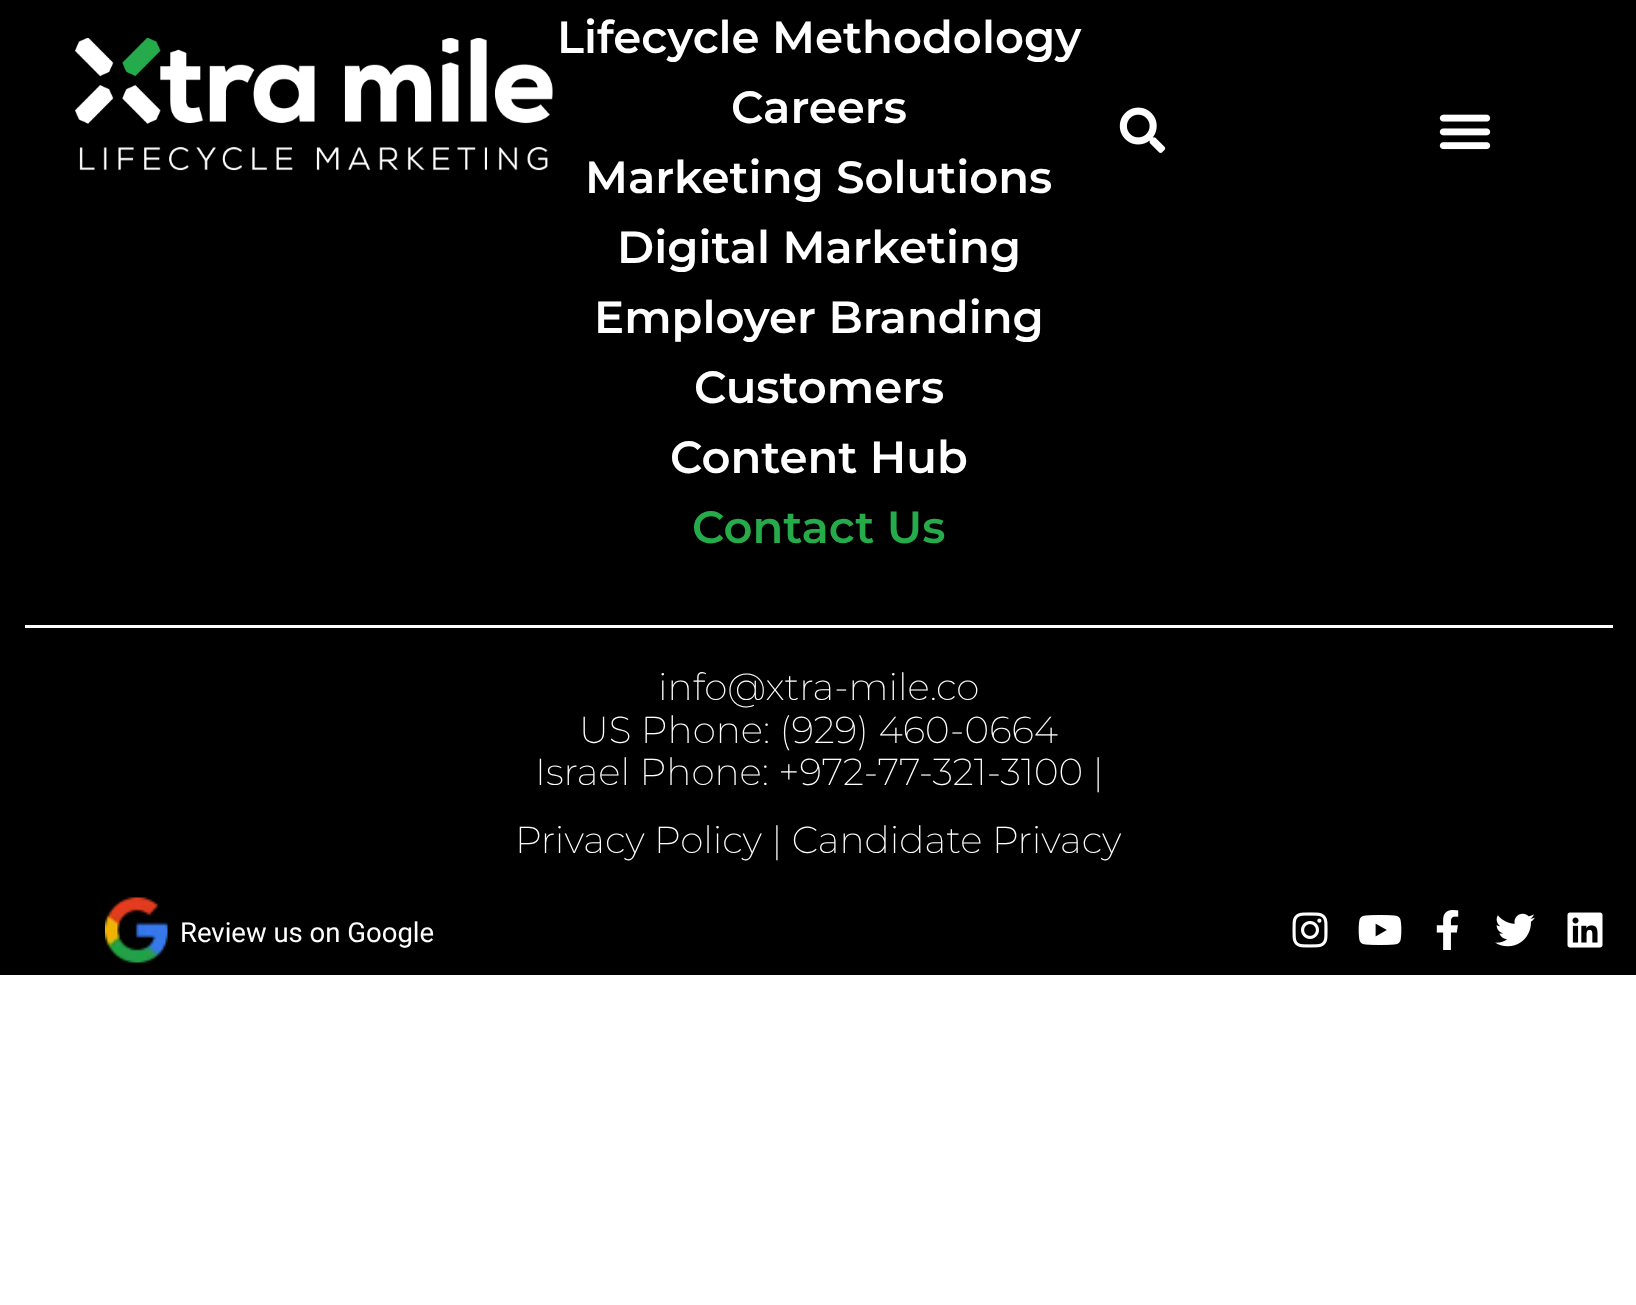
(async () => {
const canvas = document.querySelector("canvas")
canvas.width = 1636
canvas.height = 1305
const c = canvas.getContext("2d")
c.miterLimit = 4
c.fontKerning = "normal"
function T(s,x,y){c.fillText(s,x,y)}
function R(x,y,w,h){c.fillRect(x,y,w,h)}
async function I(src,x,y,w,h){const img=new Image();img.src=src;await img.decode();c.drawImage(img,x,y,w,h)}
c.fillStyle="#fff"
R(0,0,1636,1305)
c.fillStyle="#000"
R(0,0,1636,975)
c.font="600 45px Montserrat"
c.fillStyle="#fff"
T("Lifecycle Methodology",557,53)
T("Careers",731,123)
T("Marketing Solutions",585,193)
T("Digital Marketing",617,263)
T("Employer Branding",594,333)
T("Customers",694,403)
T("Content Hub",670,473)
c.fillStyle="#26ab4a"
T("Contact Us",692,543)
c.fillStyle="#fff"
R(25,625,1588,3)
c.font="200 37.5px Montserrat"
T("info@xtra-mile.co",658,700)
T("US Phone: (929) 460-0664",579,743)
T("Israel Phone: +972-77-321-3100 |",535,785)
T("Privacy Policy | Candidate Privacy",515,853)
await I("1.png",105,897,63,66)
c.font="27.5px Roboto"
T("Review us on Google",180,942)
await I("2.png",1292,912,36,36)
await I("3.png",1358,915,44,30)
await I("4.png",1436,910,23,40)
await I("5.png",1495,913,40,34)
await I("6.png",1567,912,36,36)
await I("7.png",75,38,478,133)
await I("8.png",1119,107,47,46)
await I("9.png",1439,114,52,36)
})()
